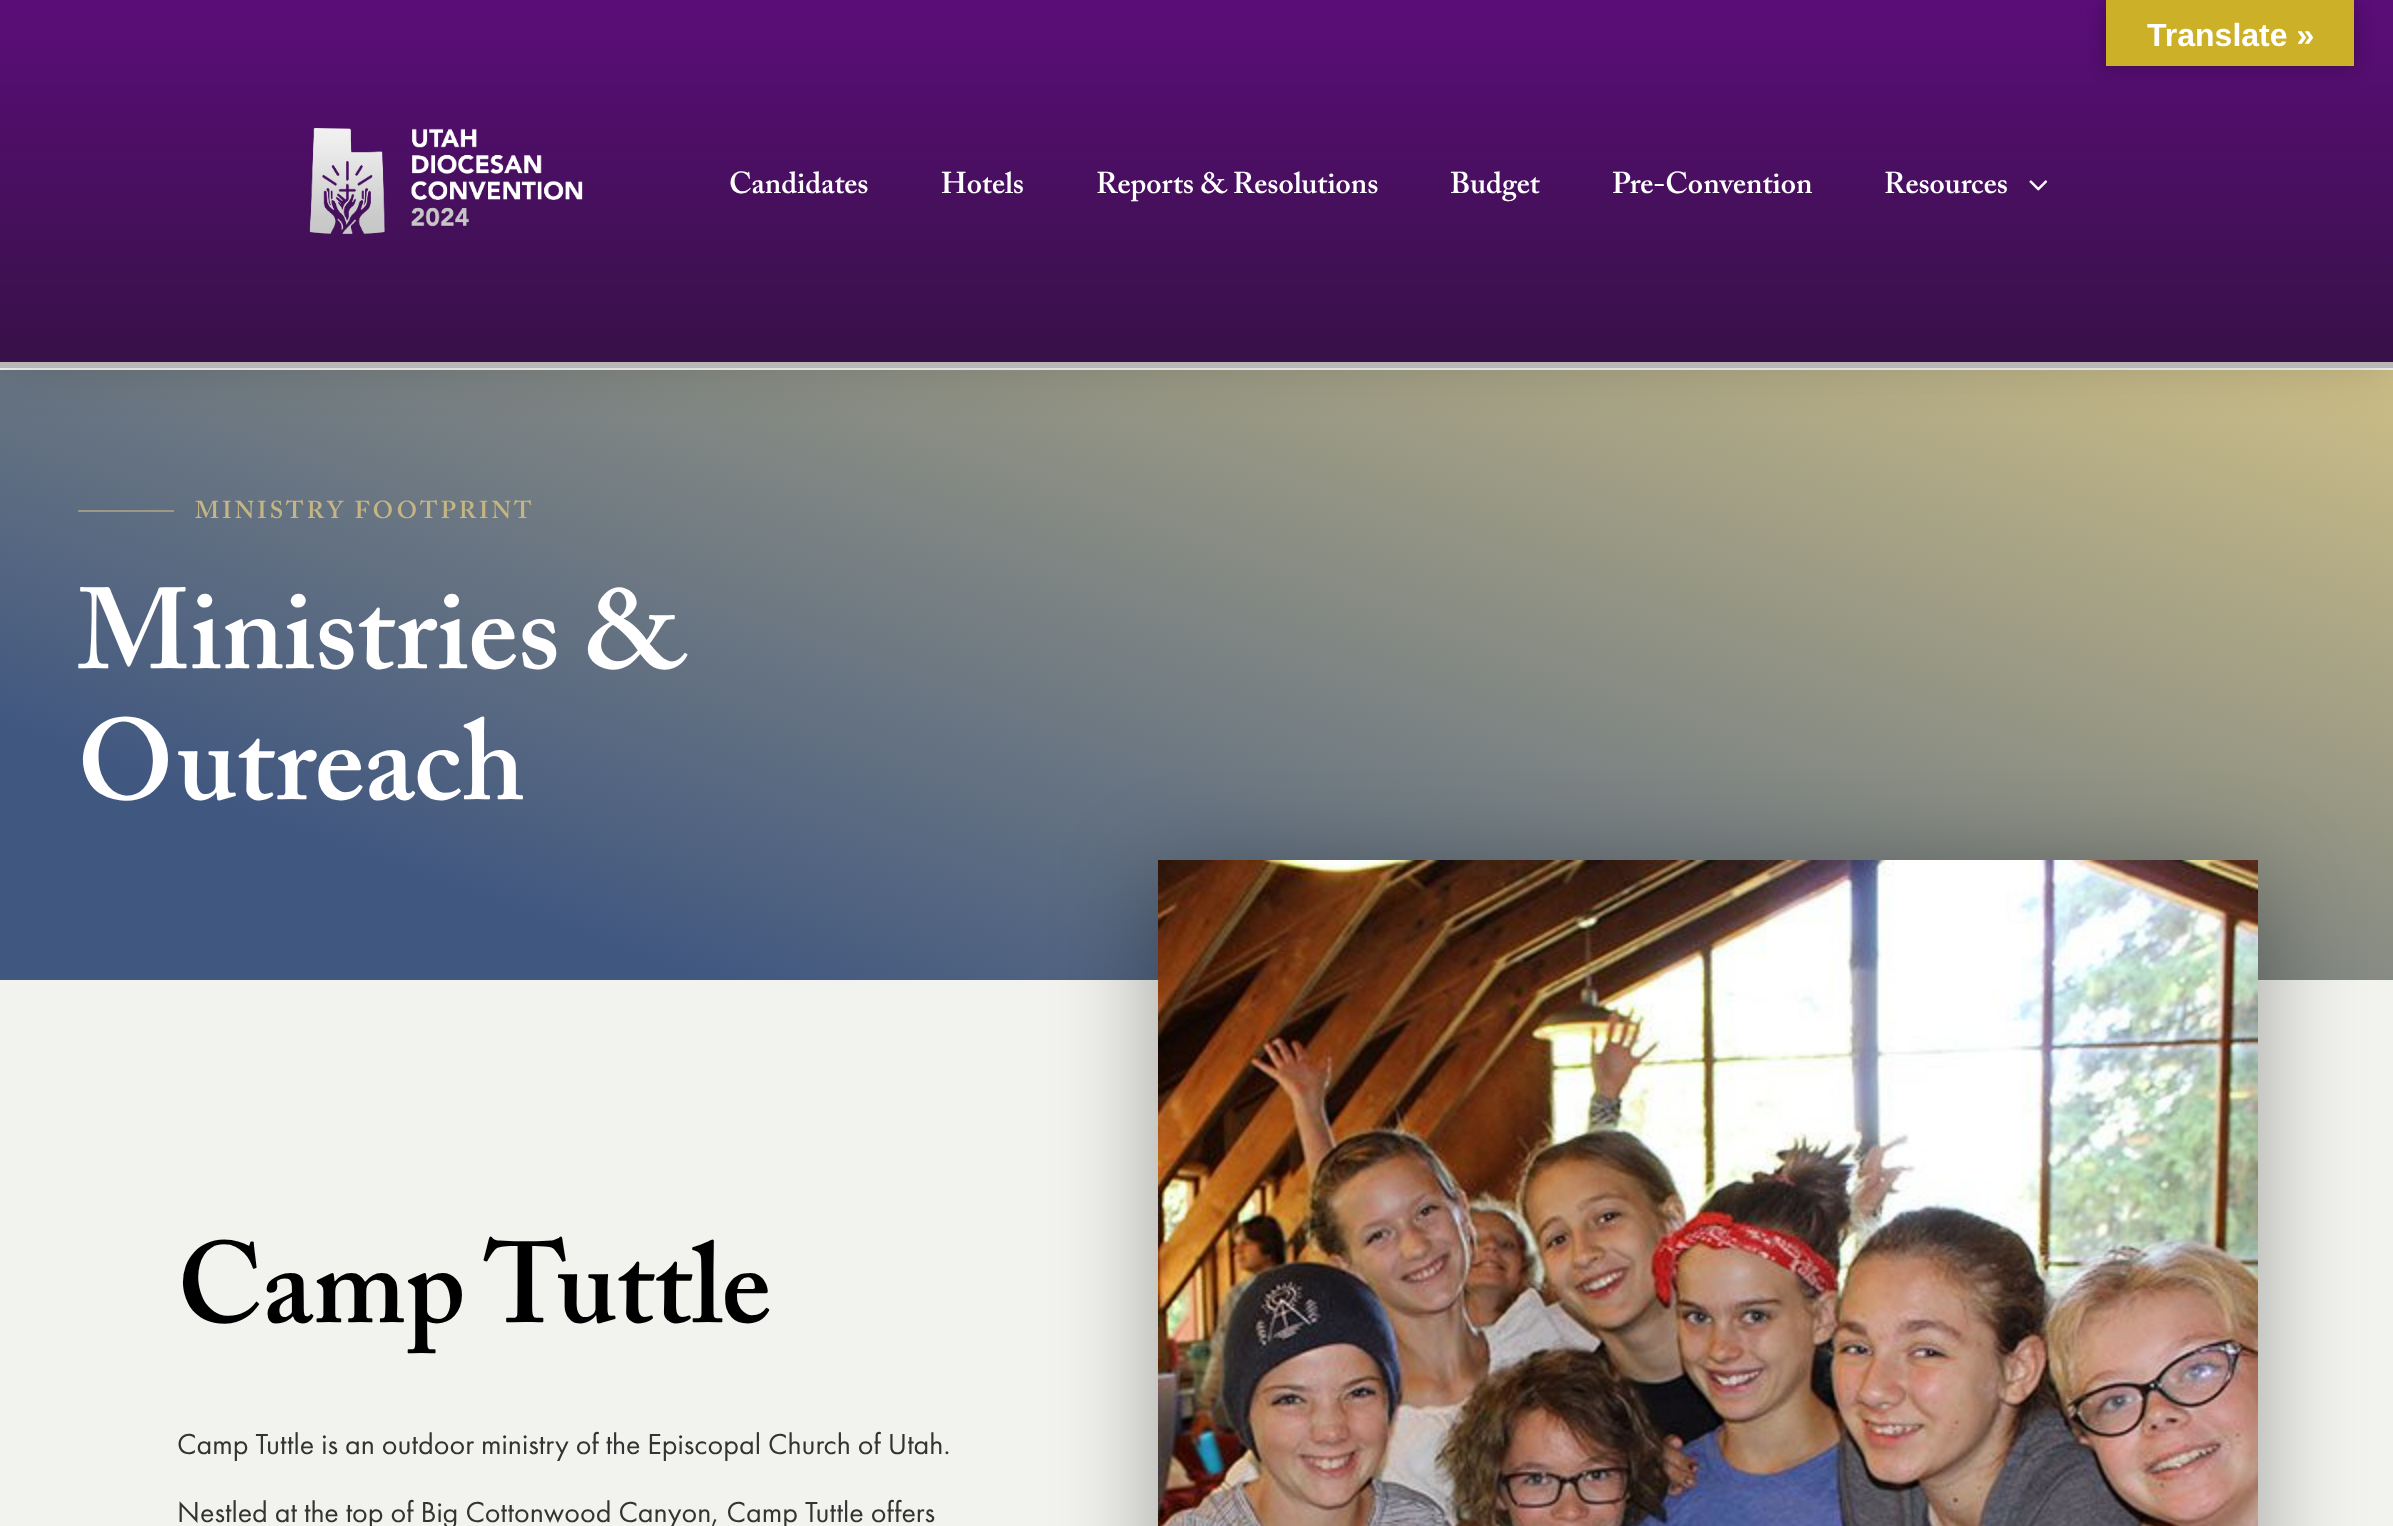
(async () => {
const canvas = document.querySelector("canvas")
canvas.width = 2393
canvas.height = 1526
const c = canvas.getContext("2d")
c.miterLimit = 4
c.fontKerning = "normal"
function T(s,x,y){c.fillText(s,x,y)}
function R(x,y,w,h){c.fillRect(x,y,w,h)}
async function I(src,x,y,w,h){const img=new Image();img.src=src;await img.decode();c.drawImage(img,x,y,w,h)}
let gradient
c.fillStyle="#f2f2ee"
R(0,0,2393,1526)
gradient = c.createLinearGradient(1435,21,959,1329)
gradient.addColorStop(0,"#ccbe87")
gradient.addColorStop(.83,"#405780")
c.fillStyle = gradient
R(0,370,2393,610)
c.fillStyle="#00000026"
c.filter="blur(24px)"
c.beginPath()
c.rect(0,0,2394,368)
c.fill()
c.filter="none"
gradient = c.createLinearGradient(1197,0,1197,362)
gradient.addColorStop(0,"#5b0d79")
gradient.addColorStop(1,"#371147")
c.fillStyle = gradient
R(0,0,2393,362)
c.fillStyle="#0000004d"
c.filter="blur(9px)"
c.beginPath()
c.rect(2106,0,248,66)
c.fill()
c.filter="none"
c.fillStyle="#ccb028"
R(2106,0,248,66)
c.font="bold 32px Liberation Sans"
c.fillStyle="#fff"
T("Translate »",2147,46)
c.fillStyle="#b7b7b7"
R(0,362,2393,6)
await I("1.png",309,128,274,106)
c.font="600 30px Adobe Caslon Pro"
c.fillStyle="#fff"
T("Candidates",729,193)
T("Hotels",941,193)
T("Reports & Resolutions",1096,193)
T("Budget",1450,193)
T("Pre-Convention",1612,193)
T("Resources",1884,193)
await I("2.png",2029,180,19,11)
gradient = c.createLinearGradient(1435,21,959,1329)
gradient.addColorStop(0,"#c7b985")
gradient.addColorStop(.83,"#8f8f82")
c.fillStyle = gradient
R(78,510,96,2)
c.letterSpacing="3px"
c.font="600 24.25px Adobe Caslon Pro"
c.fillStyle="#c4b583"
T("MINISTRY FOOTPRINT",195,518)
c.letterSpacing="0px"
c.font="600 114px Adobe Caslon Pro"
c.fillStyle="#fff"
T("Ministries &",77,668)
T("Outreach",77,799)
c.fillStyle="#000"
T("Camp Tuttle",177,1322)
c.font="30px Futura PT"
c.fillStyle="#333"
T("Camp Tuttle is an outdoor ministry of the Episcopal Church of Utah.",177,1454)
T("Nestled at the top of Big Cottonwood Canyon, Camp Tuttle offers",177,1522)
c.fillStyle="#00000059"
c.filter="blur(50px)"
c.beginPath()
c.rect(1158,880,1100,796)
c.fill()
c.filter="none"
await I("3.png",1158,860,1100,666)
})()
